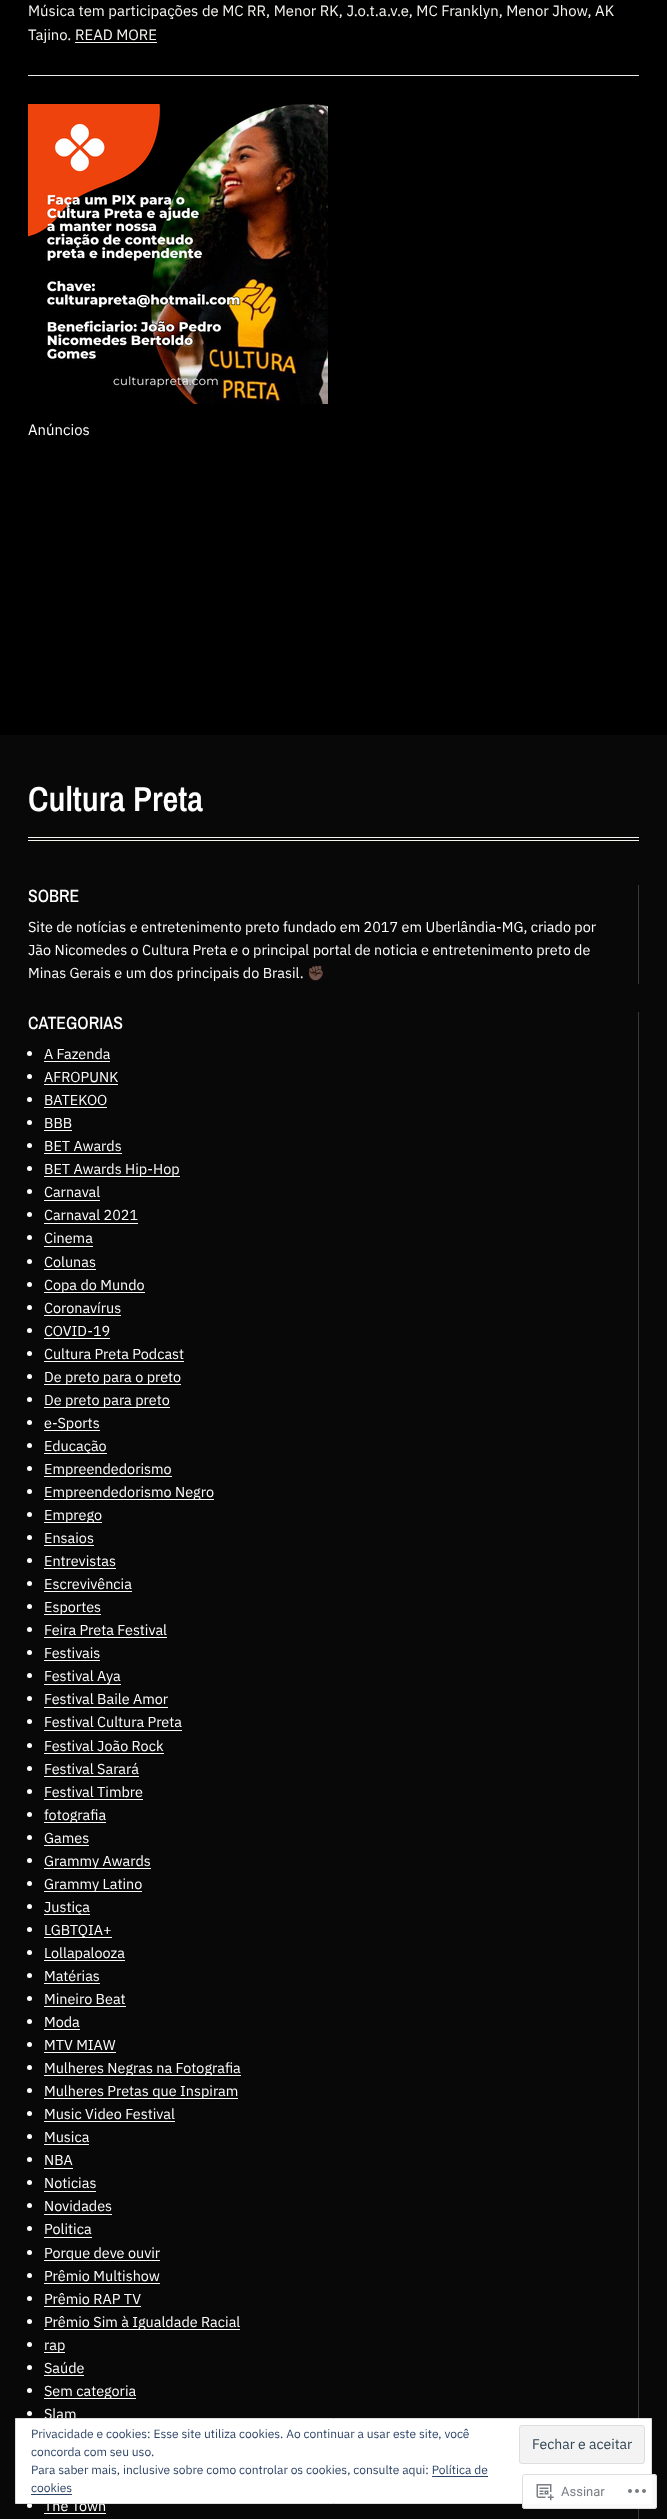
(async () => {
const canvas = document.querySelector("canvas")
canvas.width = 667
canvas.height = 2519
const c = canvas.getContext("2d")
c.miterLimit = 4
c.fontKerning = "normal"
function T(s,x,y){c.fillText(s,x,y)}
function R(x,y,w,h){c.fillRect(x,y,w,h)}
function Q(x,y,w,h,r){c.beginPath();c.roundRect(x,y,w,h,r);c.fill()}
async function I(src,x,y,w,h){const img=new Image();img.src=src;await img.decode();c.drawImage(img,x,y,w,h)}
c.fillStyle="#000"
R(0,0,667,2519)
c.fillStyle="#e8ebee"
R(28,75,611,1)
c.font="14.9px IBM Plex Sans"
c.fillStyle="#f7f6f1"
T("Música tem participações de MC RR, Menor RK, J.o.t.a.v.e, MC Franklyn, Menor Jhow, AK",28,16)
T("Tajino. READ MORE",28,40)
R(75,42,82,1)
await I("1.png",28,104,300,300)
c.fillStyle="#fff"
T("Anúncios",28,435)
c.fillStyle="#080808"
R(0,735,667,1784)
c.font="600 34.75px Archivo Narrow"
c.fillStyle="#fff"
T("Cultura Preta",28,811)
c.fillStyle="#f7f6f1"
R(28,837,611,1)
R(28,840,611,1)
c.fillStyle="#393939"
R(638,885,1,99)
c.font="500 17.75px Archivo Narrow"
c.fillStyle="#fff"
T("SOBRE",28,902)
c.font="14.4px IBM Plex Sans"
T("Site de notícias e entretenimento preto fundado em 2017 em Uberlândia-MG, criado por",28,932)
T("Jão Nicomedes o Cultura Preta e o principal portal de noticia e entretenimento preto de",28,955)
T("Minas Gerais e um dos principais do Brasil.",28,978)
c.font="14.4px Noto Color Emoji"
T("✊🏿",307,978)
c.fillStyle="#393939"
R(638,1012,1,1507)
c.font="500 17.75px Archivo Narrow"
c.fillStyle="#fff"
T("CATEGORIAS",28,1029)
c.beginPath()
c.arc(29.5,1053.5,2.5,0,7)
c.fill()
c.font="14.4px IBM Plex Sans"
T("A Fazenda",44,1059)
R(44,1061,66,1)
c.beginPath()
c.arc(29.5,1076.5,2.5,0,7)
c.fill()
T("AFROPUNK",44,1082)
R(44,1084,74,1)
c.beginPath()
c.arc(29.5,1099.5,2.5,0,7)
c.fill()
T("BATEKOO",44,1105)
R(44,1107,63,1)
c.beginPath()
c.arc(29.5,1122.5,2.5,0,7)
c.fill()
T("BBB",44,1128)
R(44,1130,28,1)
c.beginPath()
c.arc(29.5,1145.5,2.5,0,7)
c.fill()
T("BET Awards",44,1151)
R(44,1153,78,1)
c.beginPath()
c.arc(29.5,1168.5,2.5,0,7)
c.fill()
R(44,1176,136,1)
T("BET Awards Hip-Hop",44,1174)
c.beginPath()
c.arc(29.5,1191.5,2.5,0,7)
c.fill()
T("Carnaval",44,1197)
R(44,1200,56,1)
c.beginPath()
c.arc(29.5,1214.5,2.5,0,7)
c.fill()
T("Carnaval 2021",44,1220)
R(44,1223,94,1)
c.beginPath()
c.arc(29.5,1237.5,2.5,0,7)
c.fill()
T("Cinema",44,1243)
R(44,1246,49,1)
c.beginPath()
c.arc(29.5,1261.5,2.5,0,7)
c.fill()
T("Colunas",44,1267)
R(44,1269,52,1)
c.beginPath()
c.arc(29.5,1284.5,2.5,0,7)
c.fill()
R(44,1292,101,1)
T("Copa do Mundo",44,1290)
c.beginPath()
c.arc(29.5,1307.5,2.5,0,7)
c.fill()
T("Coronavírus",44,1313)
R(44,1315,77,1)
c.beginPath()
c.arc(29.5,1330.5,2.5,0,7)
c.fill()
T("COVID-19",44,1336)
R(44,1338,66,1)
c.beginPath()
c.arc(29.5,1353.5,2.5,0,7)
c.fill()
T("Cultura Preta Podcast",44,1359)
R(44,1361,140,1)
c.beginPath()
c.arc(29.5,1376.5,2.5,0,7)
c.fill()
R(44,1384,137,1)
T("De preto para o preto",44,1382)
c.beginPath()
c.arc(29.5,1399.5,2.5,0,7)
c.fill()
R(44,1407,126,1)
T("De preto para preto",44,1405)
c.beginPath()
c.arc(29.5,1422.5,2.5,0,7)
c.fill()
R(44,1430,56,1)
T("e-Sports",44,1428)
c.beginPath()
c.arc(29.5,1445.5,2.5,0,7)
c.fill()
R(44,1453,63,1)
T("Educação",44,1451)
c.beginPath()
c.arc(29.5,1468.5,2.5,0,7)
c.fill()
R(44,1476,128,1)
T("Empreendedorismo",44,1474)
c.beginPath()
c.arc(29.5,1491.5,2.5,0,7)
c.fill()
R(44,1499,170,1)
T("Empreendedorismo Negro",44,1497)
c.beginPath()
c.arc(29.5,1514.5,2.5,0,7)
c.fill()
R(44,1522,58,1)
T("Emprego",44,1520)
c.beginPath()
c.arc(29.5,1537.5,2.5,0,7)
c.fill()
T("Ensaios",44,1543)
R(44,1545,50,1)
c.beginPath()
c.arc(29.5,1560.5,2.5,0,7)
c.fill()
T("Entrevistas",44,1566)
R(44,1568,72,1)
c.beginPath()
c.arc(29.5,1583.5,2.5,0,7)
c.fill()
T("Escrevivência",44,1589)
R(44,1591,88,1)
c.beginPath()
c.arc(29.5,1606.5,2.5,0,7)
c.fill()
R(44,1614,57,1)
T("Esportes",44,1612)
c.beginPath()
c.arc(29.5,1629.5,2.5,0,7)
c.fill()
T("Feira Preta Festival",44,1635)
R(44,1637,123,1)
c.beginPath()
c.arc(29.5,1652.5,2.5,0,7)
c.fill()
T("Festivais",44,1658)
R(44,1660,56,1)
c.beginPath()
c.arc(29.5,1675.5,2.5,0,7)
c.fill()
T("Festival Aya",44,1681)
R(44,1684,77,1)
c.beginPath()
c.arc(29.5,1698.5,2.5,0,7)
c.fill()
T("Festival Baile Amor",44,1704)
R(44,1707,124,1)
c.beginPath()
c.arc(29.5,1721.5,2.5,0,7)
c.fill()
T("Festival Cultura Preta",44,1727)
R(44,1730,138,1)
c.beginPath()
c.arc(29.5,1745.5,2.5,0,7)
c.fill()
T("Festival João Rock",44,1751)
R(44,1753,120,1)
c.beginPath()
c.arc(29.5,1768.5,2.5,0,7)
c.fill()
T("Festival Sarará",44,1774)
R(44,1776,95,1)
c.beginPath()
c.arc(29.5,1791.5,2.5,0,7)
c.fill()
T("Festival Timbre",44,1797)
R(44,1799,99,1)
c.beginPath()
c.arc(29.5,1814.5,2.5,0,7)
c.fill()
R(44,1822,62,1)
T("fotografia",44,1820)
c.beginPath()
c.arc(29.5,1837.5,2.5,0,7)
c.fill()
T("Games",44,1843)
R(44,1845,45,1)
c.beginPath()
c.arc(29.5,1860.5,2.5,0,7)
c.fill()
R(44,1868,107,1)
T("Grammy Awards",44,1866)
c.beginPath()
c.arc(29.5,1883.5,2.5,0,7)
c.fill()
R(44,1891,98,1)
T("Grammy Latino",44,1889)
c.beginPath()
c.arc(29.5,1906.5,2.5,0,7)
c.fill()
R(44,1914,46,1)
T("Justiça",44,1912)
c.beginPath()
c.arc(29.5,1929.5,2.5,0,7)
c.fill()
R(44,1937,68,1)
T("LGBTQIA+",44,1935)
c.beginPath()
c.arc(29.5,1952.5,2.5,0,7)
c.fill()
R(44,1960,81,1)
T("Lollapalooza",44,1958)
c.beginPath()
c.arc(29.5,1975.5,2.5,0,7)
c.fill()
T("Matérias",44,1981)
R(44,1983,56,1)
c.beginPath()
c.arc(29.5,1998.5,2.5,0,7)
c.fill()
T("Mineiro Beat",44,2004)
R(44,2006,82,1)
c.beginPath()
c.arc(29.5,2021.5,2.5,0,7)
c.fill()
T("Moda",44,2027)
R(44,2029,36,1)
c.beginPath()
c.arc(29.5,2044.5,2.5,0,7)
c.fill()
T("MTV MIAW",44,2050)
R(44,2052,72,1)
c.beginPath()
c.arc(29.5,2067.5,2.5,0,7)
c.fill()
R(44,2075,197,1)
T("Mulheres Negras na Fotografia",44,2073)
c.beginPath()
c.arc(29.5,2090.5,2.5,0,7)
c.fill()
R(44,2098,194,1)
T("Mulheres Pretas que Inspiram",44,2096)
c.beginPath()
c.arc(29.5,2113.5,2.5,0,7)
c.fill()
T("Music Video Festival",44,2119)
R(44,2121,131,1)
c.beginPath()
c.arc(29.5,2136.5,2.5,0,7)
c.fill()
T("Musica",44,2142)
R(44,2144,45,1)
c.beginPath()
c.arc(29.5,2159.5,2.5,0,7)
c.fill()
T("NBA",44,2165)
R(44,2168,29,1)
c.beginPath()
c.arc(29.5,2182.5,2.5,0,7)
c.fill()
T("Noticias",44,2188)
R(44,2191,52,1)
c.beginPath()
c.arc(29.5,2205.5,2.5,0,7)
c.fill()
T("Novidades",44,2211)
R(44,2214,68,1)
c.beginPath()
c.arc(29.5,2228.5,2.5,0,7)
c.fill()
T("Politica",44,2234)
R(44,2237,48,1)
c.beginPath()
c.arc(29.5,2252.5,2.5,0,7)
c.fill()
R(44,2260,116,1)
T("Porque deve ouvir",44,2258)
c.beginPath()
c.arc(29.5,2275.5,2.5,0,7)
c.fill()
T("Prêmio Multishow",44,2281)
R(44,2283,116,1)
c.beginPath()
c.arc(29.5,2298.5,2.5,0,7)
c.fill()
T("Prêmio RAP TV",44,2304)
R(44,2306,97,1)
c.beginPath()
c.arc(29.5,2321.5,2.5,0,7)
c.fill()
R(44,2329,196,1)
T("Prêmio Sim à Igualdade Racial",44,2327)
c.beginPath()
c.arc(29.5,2344.5,2.5,0,7)
c.fill()
R(44,2352,21,1)
T("rap",44,2350)
c.beginPath()
c.arc(29.5,2367.5,2.5,0,7)
c.fill()
T("Saúde",44,2373)
R(44,2375,40,1)
c.beginPath()
c.arc(29.5,2390.5,2.5,0,7)
c.fill()
R(44,2398,92,1)
T("Sem categoria",44,2396)
c.beginPath()
c.arc(29.5,2413.5,2.5,0,7)
c.fill()
T("Slam",44,2419)
c.beginPath()
c.arc(29.5,2505.5,2.5,0,7)
c.fill()
T("The Town",44,2511)
R(44,2513,62,1)
c.beginPath()
c.rect(15.5,2418.5,636,85)
c.fill()
c.strokeStyle="#dedede"
c.stroke()
c.font="12px IBM Plex Sans"
c.fillStyle="#2e4467"
T("Privacidade e cookies: Esse site utiliza cookies. Ao continuar a usar este site, você",31,2438)
c.fillStyle="#f3f3f3"
c.beginPath()
c.roundRect(519.5,2425.5,125,38,2.5)
c.fill()
c.stroke()
c.font="14px IBM Plex Sans"
c.fillStyle="#2e4453"
T("Fechar e aceitar",532,2449)
c.font="12px IBM Plex Sans"
c.fillStyle="#2e4467"
T("concorda com seu uso.",31,2456)
T("Para saber mais, inclusive sobre como controlar os cookies, consulte aqui: Política de",31,2474)
T("cookies",31,2492)
R(432,2476,56,1)
R(31,2494,41,1)
c.fillStyle="#fffffffa"
Q(522,2474,135,35,3)
c.beginPath()
c.roundRect(522.5,2474.5,134,34,2.5)
c.strokeStyle="#dcdcdefa"
c.stroke()
await I("2.png",536,2484,18,17)
c.font="13px Roboto"
c.fillStyle="#7b7f85"
T("Assinar",561,2496)
await I("3.png",628,2489,18,4)
})()
